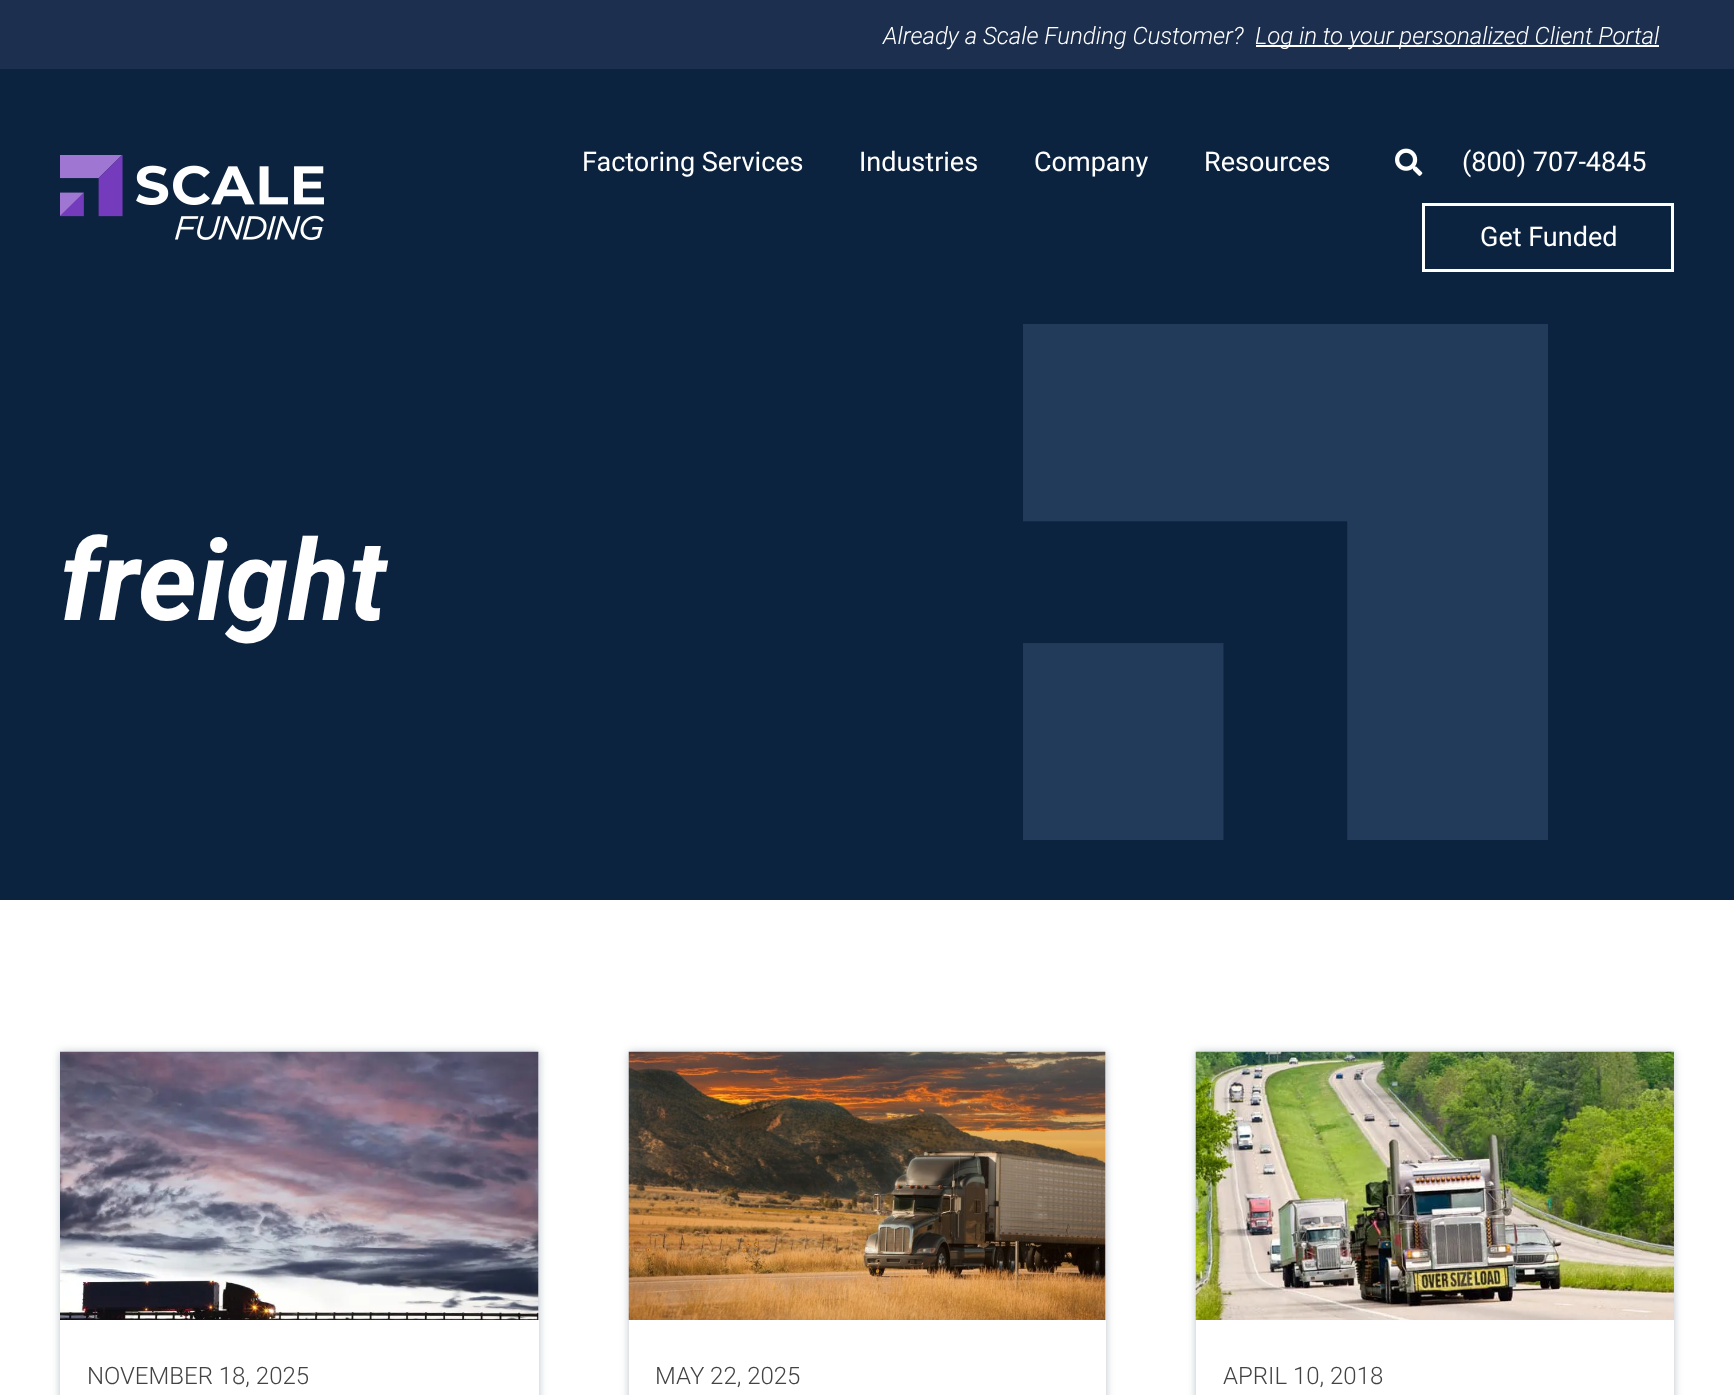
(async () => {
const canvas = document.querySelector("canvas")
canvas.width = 1734
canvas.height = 1395
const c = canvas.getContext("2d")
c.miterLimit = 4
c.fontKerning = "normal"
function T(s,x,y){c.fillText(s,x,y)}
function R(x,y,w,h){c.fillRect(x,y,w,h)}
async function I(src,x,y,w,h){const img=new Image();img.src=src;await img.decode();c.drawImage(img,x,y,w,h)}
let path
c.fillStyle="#fff"
R(0,0,1734,1395)
c.fillStyle="#1c2f4f"
R(0,0,1734,69)
c.font="italic 300 24px Roboto"
c.fillStyle="#fff"
T("Already a Scale Funding Customer?",883,44)
R(1256,45,403,2)
T("Log in to your personalized Client Portal",1255,44)
c.fillStyle="#0c2340"
R(0,69,1734,831)
await I("1.png",60,155,264,85)
c.font="27px Roboto"
c.fillStyle="#fff"
T("Factoring Services",582,171)
T("Industries",859,171)
T("Company",1034,171)
T("Resources",1204,171)
await I("2.png",1395,148,28,28)
T("(800) 707-4845",1462,171)
c.strokeStyle="#fff"
c.lineWidth=3
c.strokeRect(1423.5,204.5,249,66)
T("Get Funded",1480,246)
c.font="italic bold 112.5px Roboto"
T("freight",60,620)
await I("3.png",1023,324,525,516)
c.fillStyle="#7a869680"
c.filter="blur(4.5px)"
c.beginPath()
c.rect(60,1052,479,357)
c.fill()
c.filter="none"
c.fillStyle="#fff"
R(60,1320,479,75)
c.fillStyle="#d8dbe3"
R(538,1052,1,268)
await I("4.png",60,1051,479,269)
c.font="300 24px Roboto"
c.fillStyle="#434343"
T("NOVEMBER 18, 2025",87,1384)
c.fillStyle="#7a869680"
c.filter="blur(4.5px)"
c.beginPath()
c.rect(629,1052,477,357)
c.fill()
c.filter="none"
c.fillStyle="#fff"
R(629,1320,477,75)
c.fillStyle="#d8dbe3"
R(1105,1052,1,268)
await I("5.png",628,1051,478,269)
c.fillStyle="#434343"
T("MAY 22, 2025",655,1384)
c.save()
path = new Path2D("M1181 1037h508v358h-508zm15 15h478v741h-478z")
c.clip(path,"evenodd")
c.fillStyle="#7a869680"
c.filter="blur(4.5px)"
c.beginPath()
c.rect(1196,1052,478,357)
c.fill()
c.filter="none"
c.restore()
await I("6.png",1195,1051,479,269)
T("APRIL 10, 2018",1223,1384)
})()
